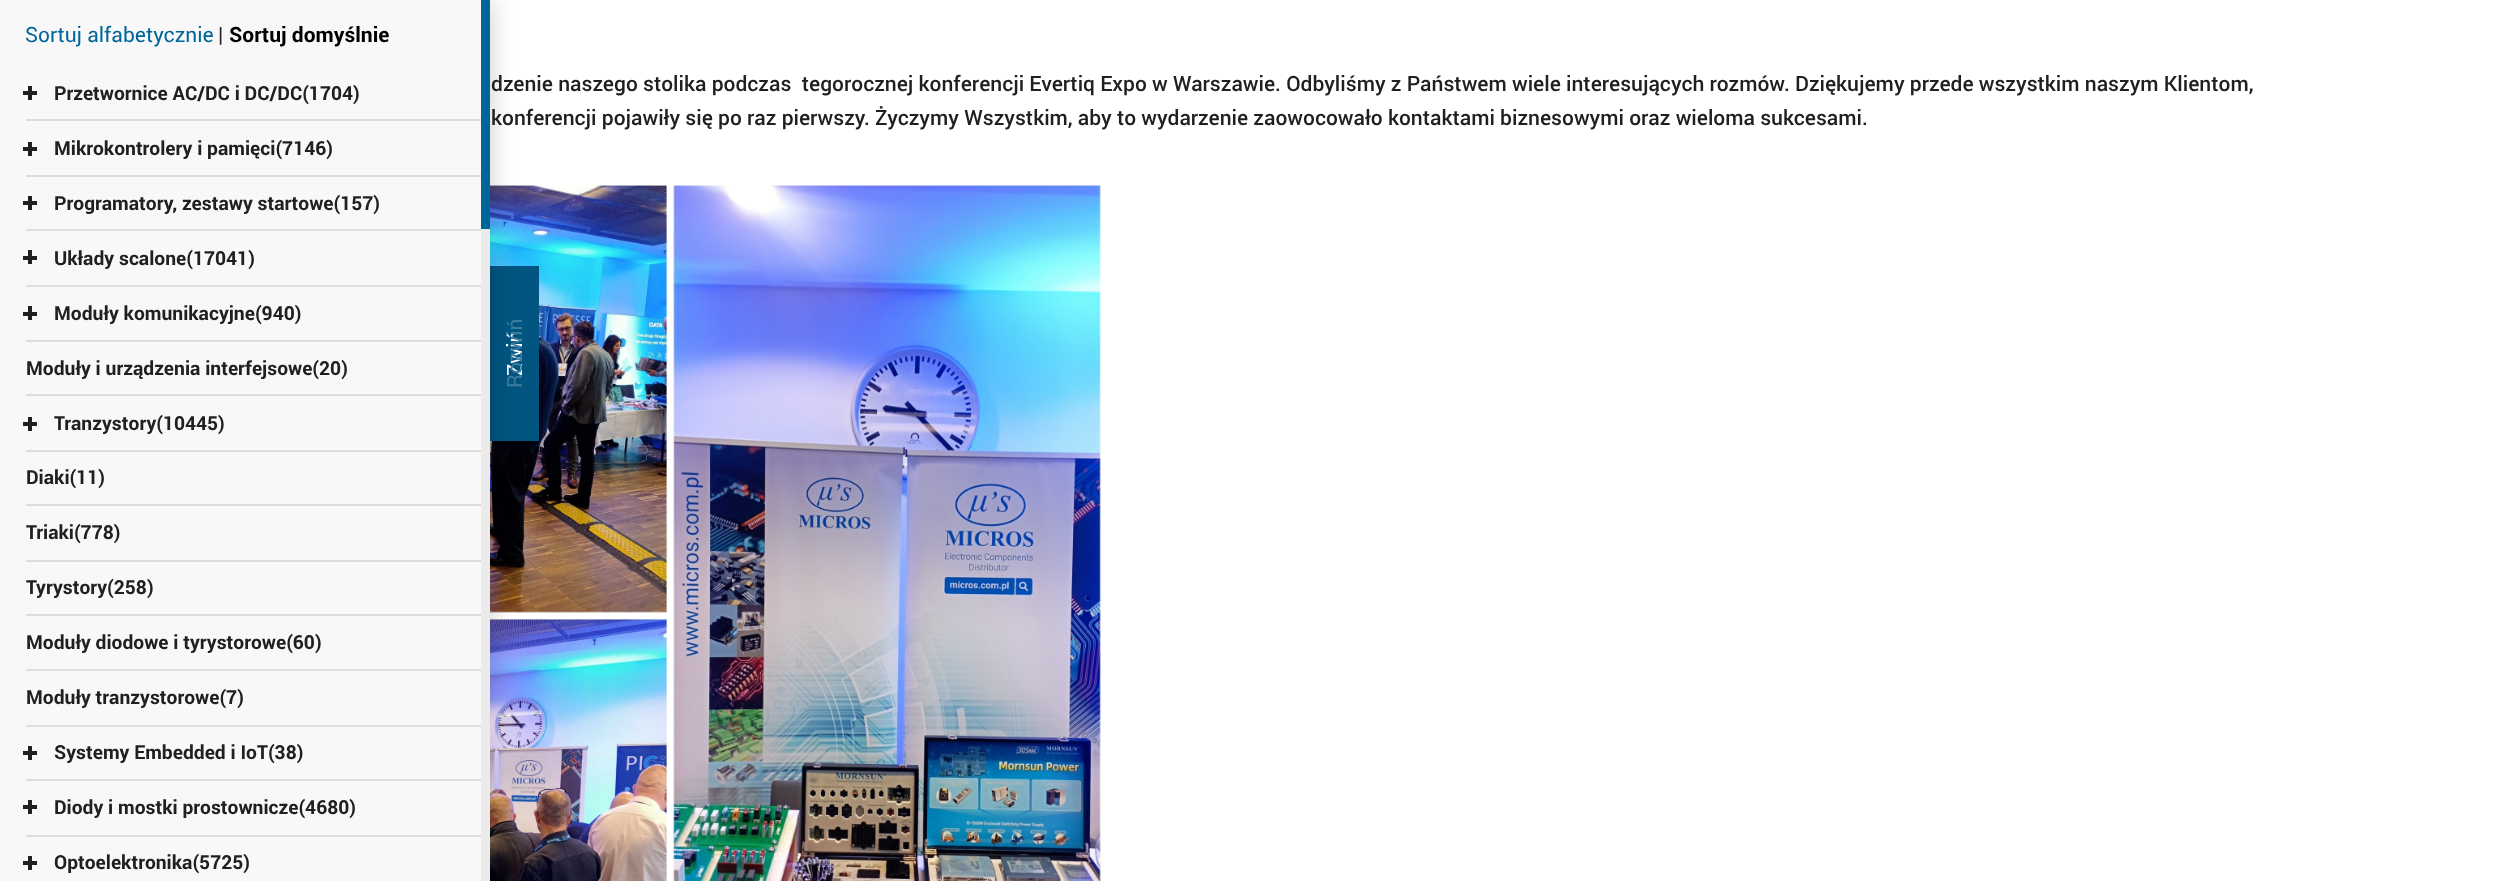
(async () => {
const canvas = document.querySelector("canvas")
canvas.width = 2511
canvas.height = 881
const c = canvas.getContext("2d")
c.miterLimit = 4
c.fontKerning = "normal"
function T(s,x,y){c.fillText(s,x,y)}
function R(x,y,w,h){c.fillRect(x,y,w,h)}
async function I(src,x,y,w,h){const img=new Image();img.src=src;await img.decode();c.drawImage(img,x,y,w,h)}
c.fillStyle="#fff"
R(0,0,2511,881)
await I("1.png",490,185,611,696)
c.fillStyle="#015580"
R(490,266,49,175)
c.fillStyle="#00000033"
c.filter="blur(13px)"
c.beginPath()
c.rect(0,0,490,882)
c.fill()
c.filter="none"
c.fillStyle="#f8f8f8"
R(0,0,481,881)
c.font="21px Roboto"
c.fillStyle="#069"
T("Sortuj alfabetycznie",25,42)
c.fillStyle="#202020"
T("|",218,42)
c.font="bold 21px Roboto"
c.fillStyle="#000"
T("Sortuj domyślnie",229,42)
c.fillStyle="#ddd"
R(26,119,455,2)
c.fillStyle="#202020"
R(23,91,14,4)
R(28,86,4,14)
c.font="bold 19.25px Roboto"
T("Przetwornice AC/DC i DC/DC(1704)",54,100)
c.fillStyle="#ddd"
R(26,175,455,2)
c.fillStyle="#202020"
R(23,147,14,4)
R(28,142,4,14)
T("Mikrokontrolery i pamięci(7146)",54,155)
c.fillStyle="#ddd"
R(26,229,455,2)
c.fillStyle="#202020"
R(23,201,14,4)
R(28,196,4,14)
T("Programatory, zestawy startowe(157)",54,210)
c.fillStyle="#ddd"
R(26,285,455,2)
c.fillStyle="#202020"
R(23,256,14,4)
R(28,250,4,14)
T("Układy scalone(17041)",54,265)
c.fillStyle="#ddd"
R(26,340,455,2)
c.fillStyle="#202020"
R(23,312,14,4)
R(28,306,4,14)
T("Moduły komunikacyjne(940)",54,320)
c.fillStyle="#ddd"
R(26,394,455,2)
c.fillStyle="#202020"
T("Moduły i urządzenia interfejsowe(20)",26,375)
c.fillStyle="#ddd"
R(26,450,455,2)
c.fillStyle="#202020"
R(23,422,14,4)
R(28,417,4,14)
T("Tranzystory(10445)",54,430)
c.fillStyle="#ddd"
R(26,504,455,2)
c.fillStyle="#202020"
T("Diaki(11)",26,484)
c.fillStyle="#ddd"
R(26,560,455,2)
c.fillStyle="#202020"
T("Triaki(778)",26,539)
c.fillStyle="#ddd"
R(26,614,455,2)
c.fillStyle="#202020"
T("Tyrystory(258)",26,594)
c.fillStyle="#ddd"
R(26,669,455,2)
c.fillStyle="#202020"
T("Moduły diodowe i tyrystorowe(60)",26,649)
c.fillStyle="#ddd"
R(26,725,455,2)
c.fillStyle="#202020"
T("Moduły tranzystorowe(7)",26,704)
c.fillStyle="#ddd"
R(26,779,455,2)
c.fillStyle="#202020"
R(23,751,14,4)
R(28,746,4,14)
T("Systemy Embedded i IoT(38)",54,759)
c.fillStyle="#ddd"
R(26,835,455,2)
c.fillStyle="#202020"
R(23,805,14,4)
R(28,800,4,14)
T("Diody i mostki prostownicze(4680)",54,814)
R(23,861,14,4)
R(28,856,4,14)
T("Optoelektronika(5725)",54,869)
c.fillStyle="#ebebeb"
R(481,229,9,652)
c.fillStyle="#069"
R(481,0,9,229)
c.font="21px Roboto"
c.fillStyle="#fff"
c.save()
c.translate(522,376)
c.rotate(-90 * Math.PI / 180)
c.fillText("Zwiń",0,0)
c.restore()
c.fillStyle="#3b7c9d"
c.save()
c.translate(522,388)
c.rotate(-90 * Math.PI / 180)
c.fillText("Rozwiń",0,0)
c.restore()
c.font="500 21px Roboto"
c.fillStyle="#202020"
T("dzenie naszego stolika podczas  tegorocznej konferencji Evertiq Expo w Warszawie. Odbyliśmy z Państwem wiele interesujących rozmów. Dziękujemy przede wszystkim naszym Klientom,",491,91)
T("konferencji pojawiły się po raz pierwszy. Życzymy Wszystkim, aby to wydarzenie zaowocowało kontaktami biznesowymi oraz wieloma sukcesami.",491,125)
})()
